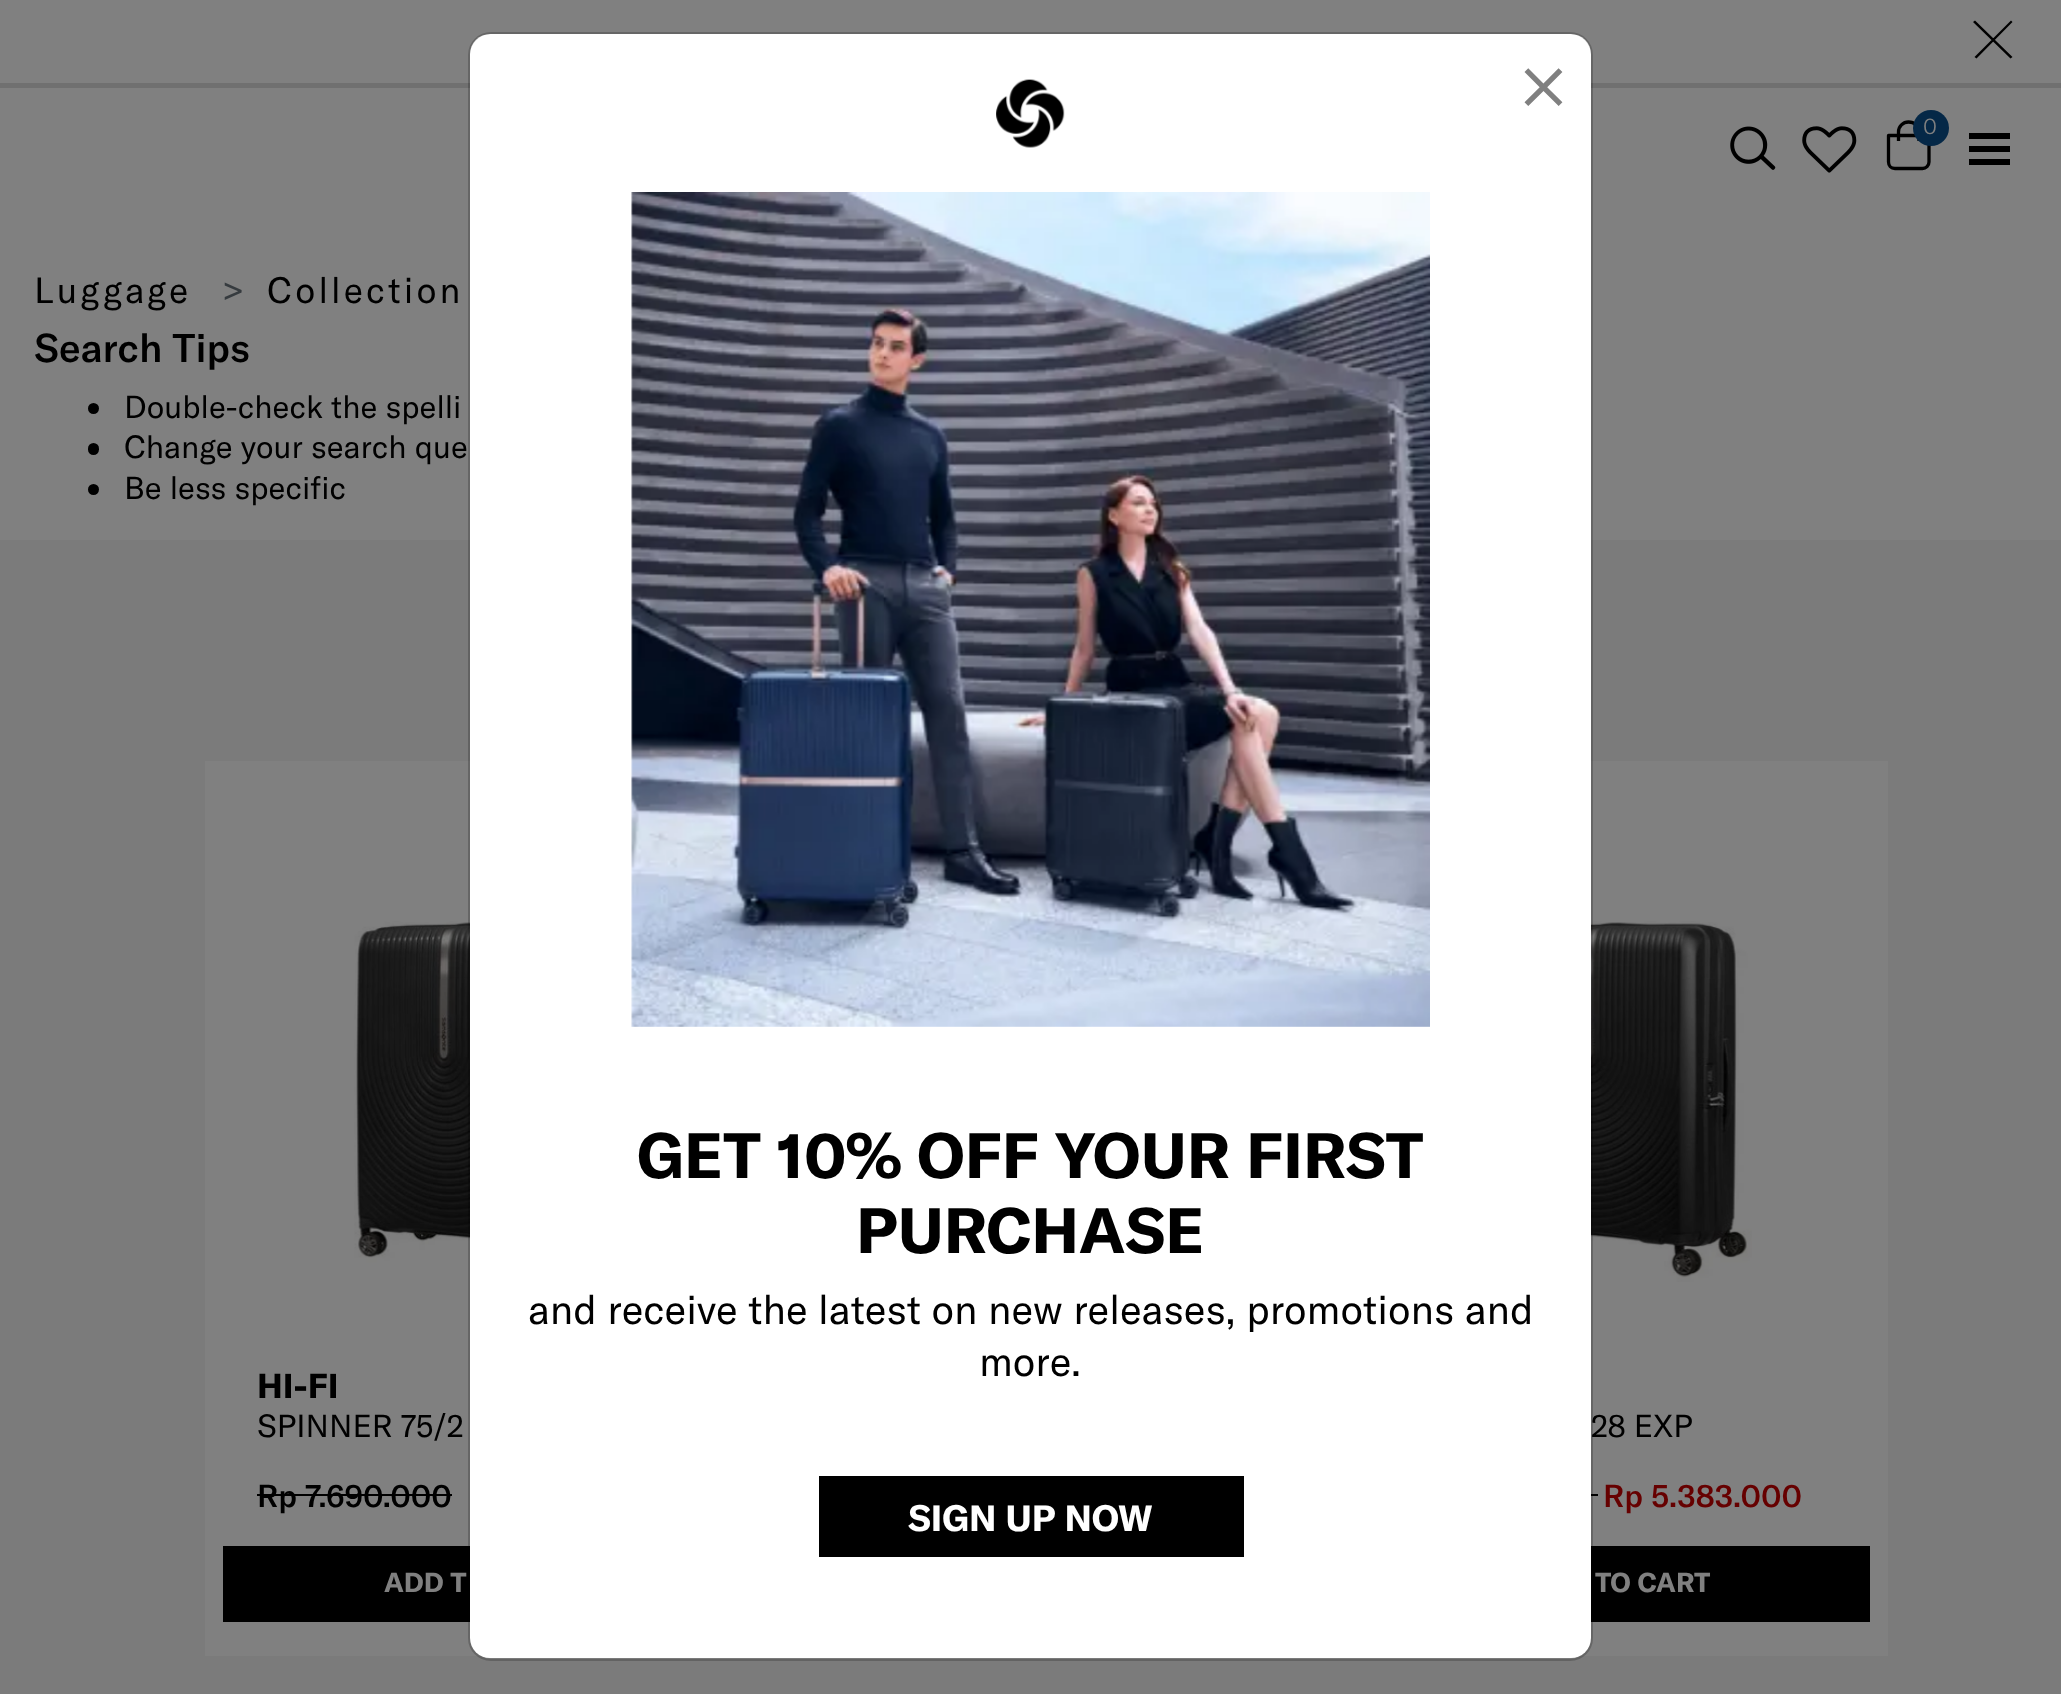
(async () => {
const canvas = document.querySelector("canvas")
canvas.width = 2061
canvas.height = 1694
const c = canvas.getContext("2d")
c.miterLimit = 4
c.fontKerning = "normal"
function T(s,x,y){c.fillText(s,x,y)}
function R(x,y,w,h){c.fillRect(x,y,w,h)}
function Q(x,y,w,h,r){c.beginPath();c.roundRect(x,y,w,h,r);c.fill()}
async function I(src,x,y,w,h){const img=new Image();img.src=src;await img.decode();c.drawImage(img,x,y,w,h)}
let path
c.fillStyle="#808080"
R(0,0,2061,1694)
c.fillStyle="#707070"
R(0,83,2061,5)
c.fillStyle="#7b7b7b"
R(0,540,2061,1154)
c.fillStyle="#808080"
R(205,761,277,895)
R(1579,761,309,895)
c.fillStyle="#fff"
Q(470,34,1121,1624,20)
await I("5.png",354,921,116,362)
c.fillStyle="#000"
R(223,1546,247,76)
await I("6.png",1591,921,161,361)
c.font="31.5px GT America"
T("28 EXP",1591,1437)
R(1591,1494,7,2)
R(1591,1546,279,76)
c.beginPath()
c.roundRect(469,33,1123,1627,22)
c.strokeStyle="#00000033"
c.lineWidth=2
c.stroke()
await I("1.png",996,79,69,69)
c.font="300 79px GT America"
c.fillStyle="#808080"
T("×",1519,113)
await I("2.png",631,192,799,835)
c.font="bold 63px GT America"
c.fillStyle="#000"
T("GET 10% OFF YOUR FIRST",637,1178)
T("PURCHASE",856,1253)
c.font="40.5px GT America"
T("and receive the latest on new releases, promotions and",528,1324)
T("more.",979,1376)
R(819,1476,425,81)
c.font="bold 36px GT America"
c.fillStyle="#fff"
T("SIGN UP NOW",908,1531)
c.fillStyle="#000"
path = new Path2D("M1973 22l2-1.5l37.5 36.5l-2 1.5zm1.5 35l36.5-36.5l1.5 1.5l-36 36.5z")
c.fill(path)
await I("3.png",1730,126,46,44)
await I("4.png",1802,126,55,47)
path = new Path2D("M1888.5 135.5h40.5v26.5c0 3.5-3 6.5-6.5 6.5h-27.5c-4 0-6.5-3-6.5-6.5zm10 5.5v-9c0-5.5 4.5-10 10-10c6 0 10.5 4.5 10.5 10v9")
c.strokeStyle="#000"
c.lineWidth=3.3
c.lineJoin="round"
c.stroke(path)
c.fillStyle="#052847"
c.beginPath()
c.arc(1931,128,18,0,7)
c.fill()
c.font="300 22px GT America"
c.fillStyle="#808080"
T("0",1923,134)
c.fillStyle="#000"
path = new Path2D("M1969 133h41v6h-41zm0 13h41v6h-41zm0 13h41v6h-41z")
c.fill(path)
c.letterSpacing="3.1px"
c.font="36px GT America"
T("Luggage",34,303)
c.fillStyle="#363b3f"
T(">",222,303)
c.fillStyle="#000"
T("Collection",267,303)
c.letterSpacing="0px"
c.font="500 39.5px GT America"
T("Search Tips",34,362)
c.beginPath()
c.arc(93.5,408.5,5.5,0,7)
c.fill()
c.font="31.5px GT America"
T("Double-check the spelli",124,418)
Q(88,443,11,12,5.5)
T("Change your search que",124,458)
c.beginPath()
c.arc(93.5,489.5,5.5,0,7)
c.fill()
T("Be less specific",124,499)
c.font="bold 34px GT America"
T("HI-FI",257,1398)
c.font="31.5px GT America"
T("SPINNER 75/2",257,1437)
c.font="500 31.5px GT America"
T("Rp 7.690.000",257,1507)
R(257,1494,195,2)
c.font="bold 27px GT America"
c.fillStyle="#808080"
T("ADD T",384,1592)
c.font="500 31.5px GT America"
c.fillStyle="#600"
T("Rp 5.383.000",1603,1507)
c.font="bold 27px GT America"
c.fillStyle="#808080"
T("TO CART",1595,1592)
})()
